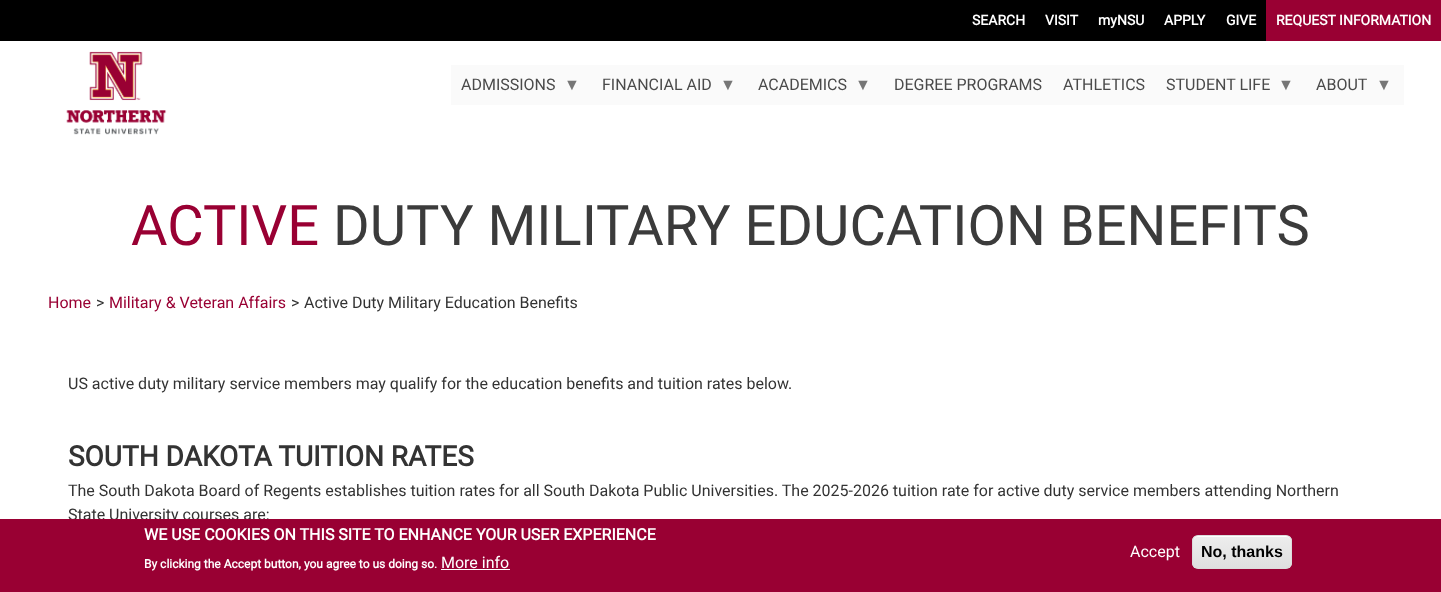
(async () => {
const canvas = document.querySelector("canvas")
canvas.width = 1441
canvas.height = 592
const c = canvas.getContext("2d")
c.miterLimit = 4
c.fontKerning = "normal"
function T(s,x,y){c.fillText(s,x,y)}
function R(x,y,w,h){c.fillRect(x,y,w,h)}
async function I(src,x,y,w,h){const img=new Image();img.src=src;await img.decode();c.drawImage(img,x,y,w,h)}
let gradient, path
c.fillStyle="#fff"
R(0,0,1441,592)
c.fillStyle="#000"
R(0,0,1266,41)
c.font="bold 14px Roboto"
c.fillStyle="#fff"
T("SEARCH",972,25)
T("VISIT",1045,25)
T("myNSU",1098,25)
T("APPLY",1164,25)
T("GIVE",1226,25)
c.fillStyle="#903"
R(1266,0,175,41)
c.fillStyle="#fff"
T("REQUEST INFORMATION",1276,25)
await I("1.png",66,51,101,84)
c.fillStyle="#fafafa"
R(451,65,953,40)
c.font="16px Roboto"
c.fillStyle="#4a4a4a"
T("ADMISSIONS",461,90)
c.font="16px Liberation Sans"
c.fillStyle="#767676"
T("▼",564,90)
c.font="16px Roboto"
c.fillStyle="#4a4a4a"
T("FINANCIAL AID",602,90)
c.font="16px Liberation Sans"
c.fillStyle="#767676"
T("▼",720,90)
c.font="16px Roboto"
c.fillStyle="#4a4a4a"
T("ACADEMICS",758,90)
c.font="16px Liberation Sans"
c.fillStyle="#767676"
T("▼",855,90)
c.font="16px Roboto"
c.fillStyle="#4a4a4a"
T("DEGREE PROGRAMS",894,90)
T("ATHLETICS",1063,90)
T("STUDENT LIFE",1166,90)
c.font="16px Liberation Sans"
c.fillStyle="#767676"
T("▼",1278,90)
c.font="16px Roboto"
c.fillStyle="#4a4a4a"
T("ABOUT",1316,90)
c.font="16px Liberation Sans"
c.fillStyle="#767676"
T("▼",1376,90)
c.font="56px Roboto"
c.fillStyle="#903"
T("ACTIVE",131,245)
c.fillStyle="#3b3b3b"
T("DUTY MILITARY EDUCATION BENEFITS",333,245)
c.font="16px Roboto"
c.fillStyle="#903"
T("Home",48,308)
c.fillStyle="#333"
T(">",96,308)
c.fillStyle="#903"
T("Military & Veteran Affairs",109,308)
c.fillStyle="#333"
T(">",291,308)
T("Active Duty Military Education Benefits",304,308)
T("US active duty military service members may qualify for the education benefits and tuition rates below.",68,389)
c.font="bold 28px Roboto"
T("SOUTH DAKOTA TUITION RATES",68,466)
c.font="16px Roboto"
T("The South Dakota Board of Regents establishes tuition rates for all South Dakota Public Universities. The 2025-2026 tuition rate for active duty service members attending Northern",68,496)
T("State University courses are:",68,520)
c.fillStyle="#903"
R(0,519,1441,73)
c.font="bold 16px Roboto"
c.fillStyle="#fff"
T("WE USE COOKIES ON THIS SITE TO ENHANCE YOUR USER EXPERIENCE",144,540)
c.font="bold 12px Roboto"
T("By clicking the Accept button, you agree to us doing so.",144,568)
c.font="16px Roboto"
T("More info",441,568)
R(441,569,69,1)
T("Accept",1130,557)
c.save()
c.beginPath()
c.roundRect(1192,535,100,34,6)
c.clip()
gradient = c.createLinearGradient(1242,536,1242,568)
gradient.addColorStop(.05,"#ededed")
gradient.addColorStop(1,"#dfdfdf")
c.fillStyle = gradient
R(1192,536,100,32)
c.restore()
path = new Path2D("M1198 537h88c3 0 5 2 5 5c0-10-14-6-20-6h-58c-6 0-20-4-20 6c0-3 2-5 5-5z")
c.fill(path)
c.beginPath()
c.roundRect(1192.5,535.5,99,33,5.5)
c.strokeStyle="#dcdcdc"
c.stroke()
c.font="bold 16px Liberation Sans"
c.fillStyle="#000"
T("No, thanks",1201,557)
})()
